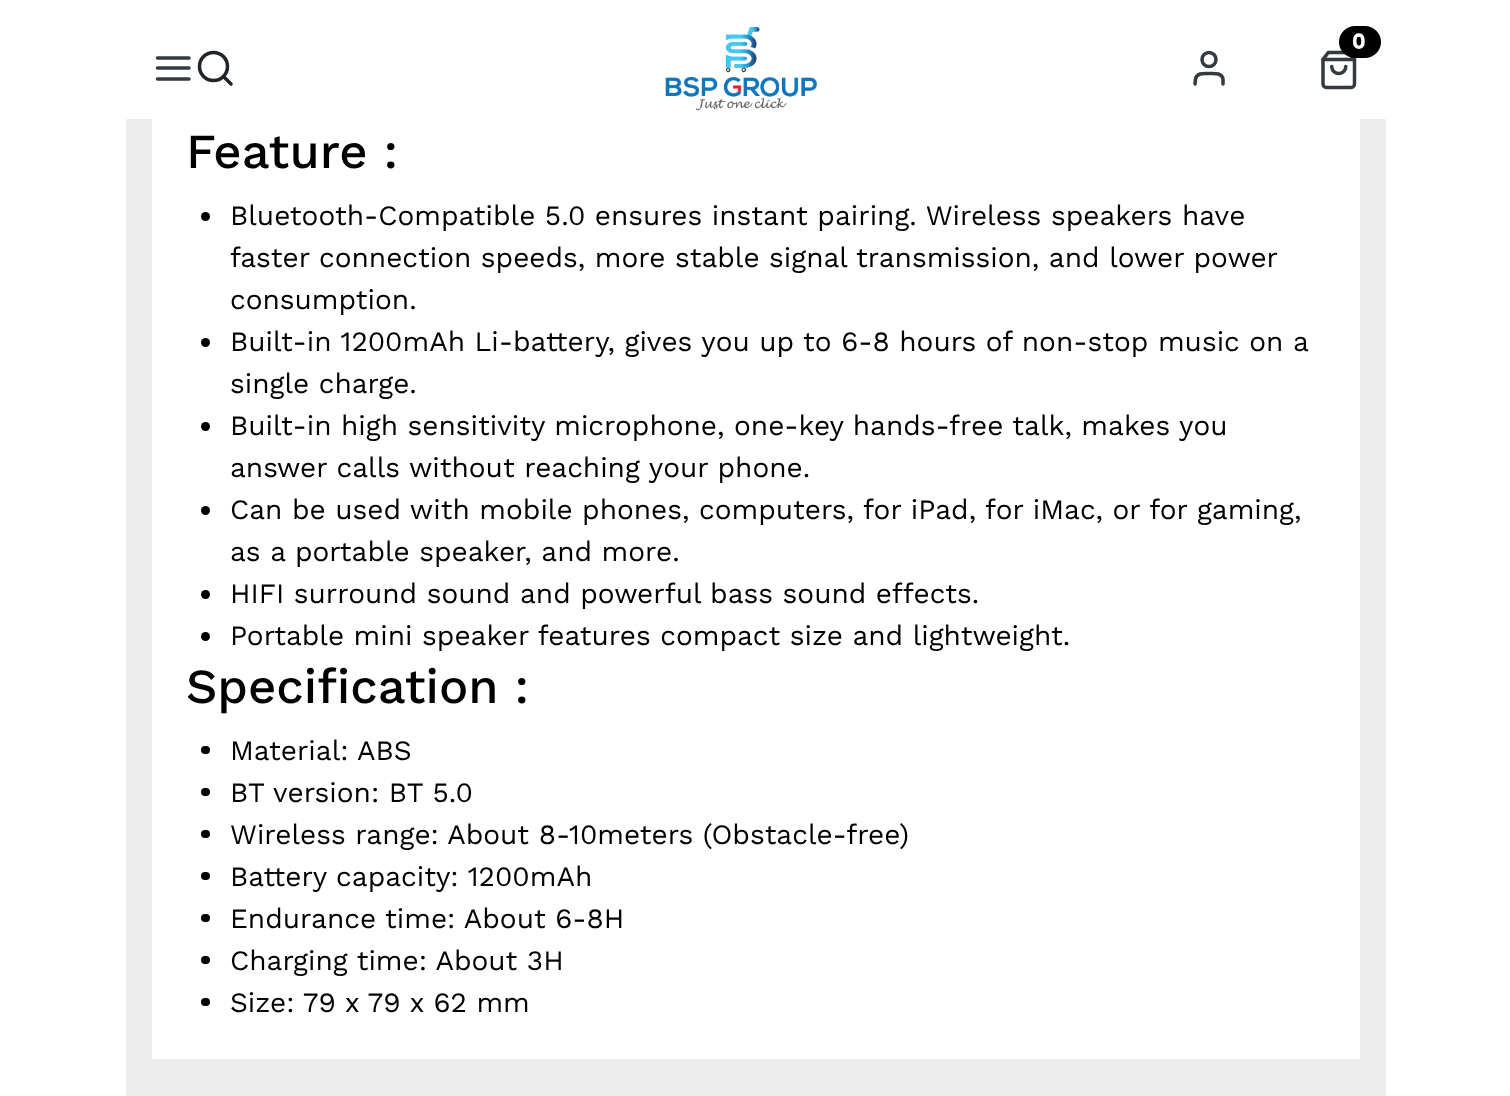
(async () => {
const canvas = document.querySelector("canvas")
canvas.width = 1510
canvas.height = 1096
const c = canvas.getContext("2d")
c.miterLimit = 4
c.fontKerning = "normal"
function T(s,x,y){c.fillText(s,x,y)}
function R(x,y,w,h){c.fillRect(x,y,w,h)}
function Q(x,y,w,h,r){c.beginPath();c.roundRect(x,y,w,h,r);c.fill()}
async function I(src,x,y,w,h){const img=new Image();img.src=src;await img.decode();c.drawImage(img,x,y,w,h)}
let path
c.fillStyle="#fff"
R(0,0,1510,1096)
await I("1.png",665,26,153,85)
await I("2.png",1321,50,36,40)
c.fillStyle="#000"
Q(1339,26,42,32,16)
c.font="bold 21px Poppins"
c.fillStyle="#fff"
T("0",1352,49)
path = new Path2D("M157.5 68h31.5m-31.5-10h31.5m-31.5 21h31.5")
c.strokeStyle="#343a40"
c.lineWidth=3.5
c.lineCap="round"
c.lineJoin="round"
c.stroke(path)
c.beginPath()
c.arc(213.5,66.5,14,0,7)
c.strokeStyle="#212529"
c.stroke()
path = new Path2D("M231 84l-7.5-7.5")
c.stroke(path)
c.beginPath()
c.arc(1209,59.5,7,0,7)
c.strokeStyle="#343a40"
c.stroke()
path = new Path2D("M1223 84v-5c-1.5-6.5-8.5-5.5-14-5.5c-5 0-12-1-13.5 5.5l-.5 5")
c.stroke(path)
c.fillStyle="#ededed"
R(126,119,1260,977)
c.fillStyle="#fff"
R(152,119,1208,940)
c.font="500 49px Work Sans"
c.fillStyle="#000"
T("Feature :",186,168)
c.beginPath()
c.arc(205.5,216.5,4.5,0,7)
c.fill()
c.font="28px Work Sans"
T("Bluetooth-Compatible 5.0 ensures instant pairing. Wireless speakers have",230,225)
T("faster connection speeds, more stable signal transmission, and lower power",230,267)
T("consumption.",230,309)
c.beginPath()
c.arc(205.5,342.5,4.5,0,7)
c.fill()
T("Built-in 1200mAh Li-battery, gives you up to 6-8 hours of non-stop music on a",230,351)
T("single charge.",230,393)
c.beginPath()
c.arc(205.5,426.5,4.5,0,7)
c.fill()
T("Built-in high sensitivity microphone, one-key hands-free talk, makes you",230,435)
T("answer calls without reaching your phone.",230,477)
c.beginPath()
c.arc(205.5,510.5,4.5,0,7)
c.fill()
T("Can be used with mobile phones, computers, for iPad, for iMac, or for gaming,",230,519)
T("as a portable speaker, and more.",230,561)
c.beginPath()
c.arc(205.5,594.5,4.5,0,7)
c.fill()
T("HIFI surround sound and powerful bass sound effects.",230,603)
c.beginPath()
c.arc(205.5,636.5,4.5,0,7)
c.fill()
T("Portable mini speaker features compact size and lightweight.",230,645)
c.font="500 49px Work Sans"
T("Specification :",186,703)
Q(201,746,9,8,4)
c.font="28px Work Sans"
T("Material: ABS",230,760)
Q(201,788,9,8,4)
T("BT version: BT 5.0",230,802)
Q(201,830,9,8,4)
T("Wireless range: About 8-10meters (Obstacle-free)",230,844)
Q(201,872,9,8,4)
T("Battery capacity: 1200mAh",230,886)
Q(201,914,9,8,4)
T("Endurance time: About 6-8H",230,928)
Q(201,956,9,8,4)
T("Charging time: About 3H",230,970)
Q(201,998,9,8,4)
T("Size: 79 x 79 x 62 mm",230,1012)
})()
